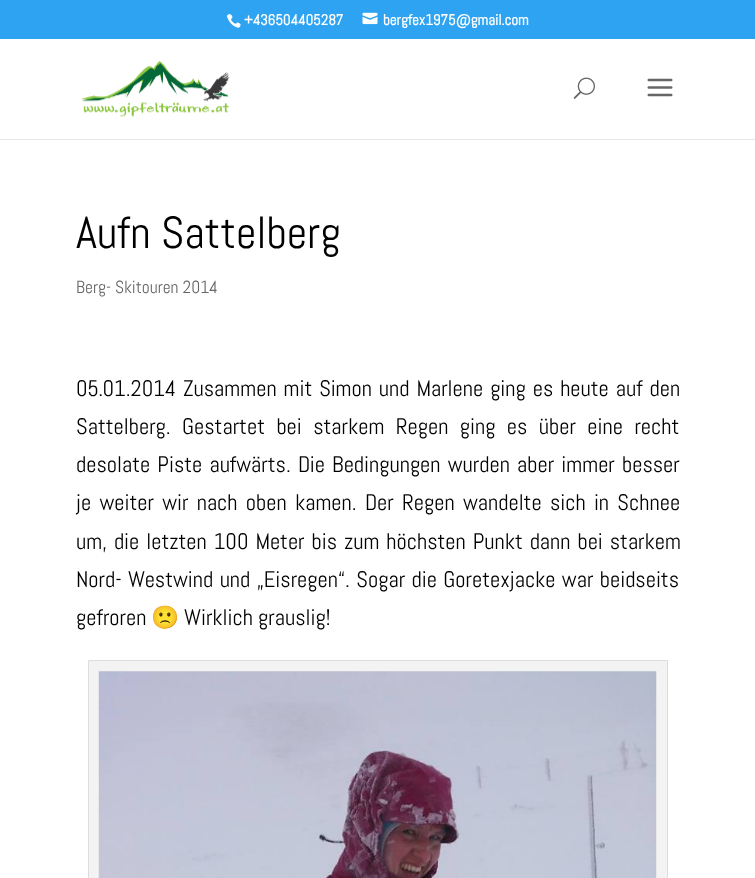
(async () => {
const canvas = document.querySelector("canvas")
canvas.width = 755
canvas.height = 878
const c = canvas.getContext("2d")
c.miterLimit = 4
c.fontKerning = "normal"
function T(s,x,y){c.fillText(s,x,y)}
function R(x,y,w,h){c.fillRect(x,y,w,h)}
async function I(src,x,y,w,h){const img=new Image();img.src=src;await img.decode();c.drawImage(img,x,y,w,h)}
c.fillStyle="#fff"
R(0,0,755,878)
c.fillStyle="#2ea3f2"
R(0,0,755,39)
await I("1.png",226,14,15,14)
c.font="bold 15px Abel"
c.fillStyle="#fff"
T("+436504405287",244,25)
await I("2.png",362,12,16,13)
T("bergfex1975@gmail.com",383,25)
c.fillStyle="#e6e6e6"
R(0,139,755,1)
await I("3.png",81,61,149,56)
await I("4.png",573,77,22,22)
await I("5.png",647,78,26,19)
c.font="45px Abel"
c.fillStyle="#000"
T("Aufn Sattelberg",76,248)
c.font="17.5px Abel"
c.fillStyle="#666"
T("Berg- Skitouren 2014",76,293)
c.wordSpacing="1.75px"
c.font="22.5px Abel"
c.fillStyle="#000"
T("05.01.2014 Zusammen mit Simon und Marlene ging es heute auf den",76,396)
c.wordSpacing="6.25px"
T("Sattelberg. Gestartet bei starkem Regen ging es über eine recht",76,434)
c.wordSpacing="2px"
T("desolate Piste aufwärts. Die Bedingungen wurden aber immer besser",76,472)
c.wordSpacing="3.1px"
T("je weiter wir nach oben kamen. Der Regen wandelte sich in Schnee",76,510)
c.wordSpacing="1.75px"
T("um, die letzten 100 Meter bis zum höchsten Punkt dann bei starkem",76,549)
c.wordSpacing="1.25px"
T("Nord- Westwind und „Eisregen“. Sogar die Goretexjacke war beidseits",76,587)
c.wordSpacing="0px"
T("gefroren",76,625)
c.font="22.5px Noto Color Emoji"
T("🙁",151,625)
c.font="22.5px Abel"
T("Wirklich grauslig!",184,625)
c.fillStyle="#f3f3f3"
c.beginPath()
c.rect(88.5,660.5,579,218)
c.fill()
c.strokeStyle="#ddd"
c.stroke()
await I("6.png",98,671,559,207)
})()
